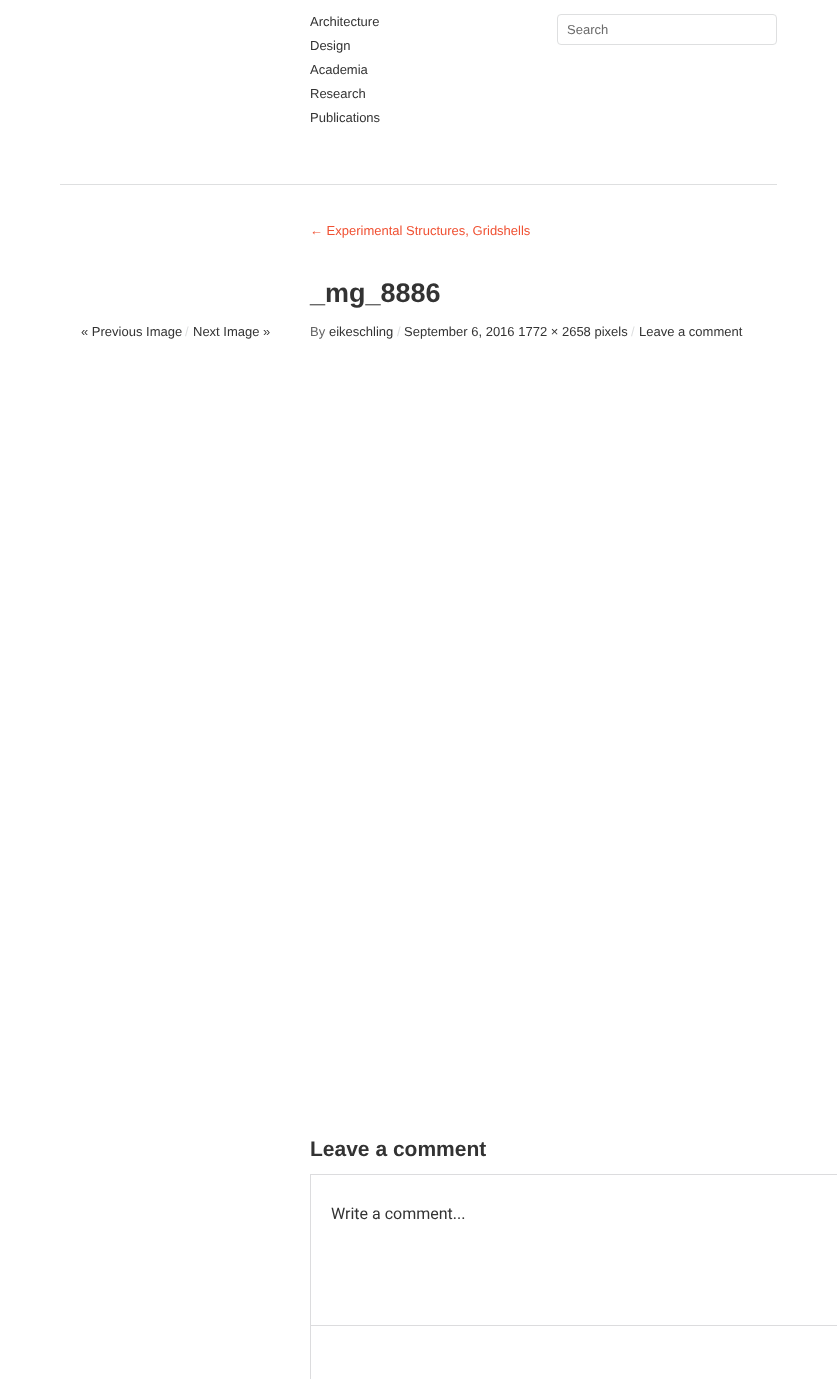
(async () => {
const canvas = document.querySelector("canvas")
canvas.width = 837
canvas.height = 1379
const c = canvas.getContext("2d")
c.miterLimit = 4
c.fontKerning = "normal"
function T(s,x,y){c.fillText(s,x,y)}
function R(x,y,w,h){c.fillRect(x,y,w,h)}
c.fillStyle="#fff"
R(0,0,837,1379)
c.fillStyle="#dedfe0"
R(60,184,717,1)
c.font="13px Liberation Sans"
c.fillStyle="#333"
T("Architecture",310,26)
T("Design",310,50)
T("Academia",310,74)
T("Research",310,98)
T("Publications",310,122)
c.beginPath()
c.roundRect(557.5,14.5,219,30,3.5)
c.strokeStyle="#dedfe0"
c.stroke()
c.fillStyle="#6b6b6b"
T("Search",567,34)
c.fillStyle="#f05133"
T("← Experimental Structures, Gridshells",310,235)
c.font="bold 27px Liberation Sans"
c.fillStyle="#333"
T("_mg_8886",310,302)
c.font="13px Liberation Sans"
T("« Previous Image",81,336)
c.fillStyle="#dedfe0"
T("/",185,336)
c.fillStyle="#333"
T("Next Image »",193,336)
c.fillStyle="#636363"
T("By",310,336)
c.fillStyle="#333"
T("eikeschling",329,336)
c.fillStyle="#dedfe0"
T("/",397,336)
c.fillStyle="#333"
T("September 6, 2016 1772 × 2658 pixels",404,336)
c.fillStyle="#dedfe0"
T("/",631,336)
c.fillStyle="#333"
T("Leave a comment",639,336)
c.font="bold 21px Liberation Sans"
T("Leave a comment",310,1156)
c.strokeStyle="#dcdcde"
c.strokeRect(310.5,1174.5,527,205)
c.font="16px Roboto"
T("Write a comment...",331,1219)
c.fillStyle="#dcdcde"
R(311,1325,526,1)
})()
